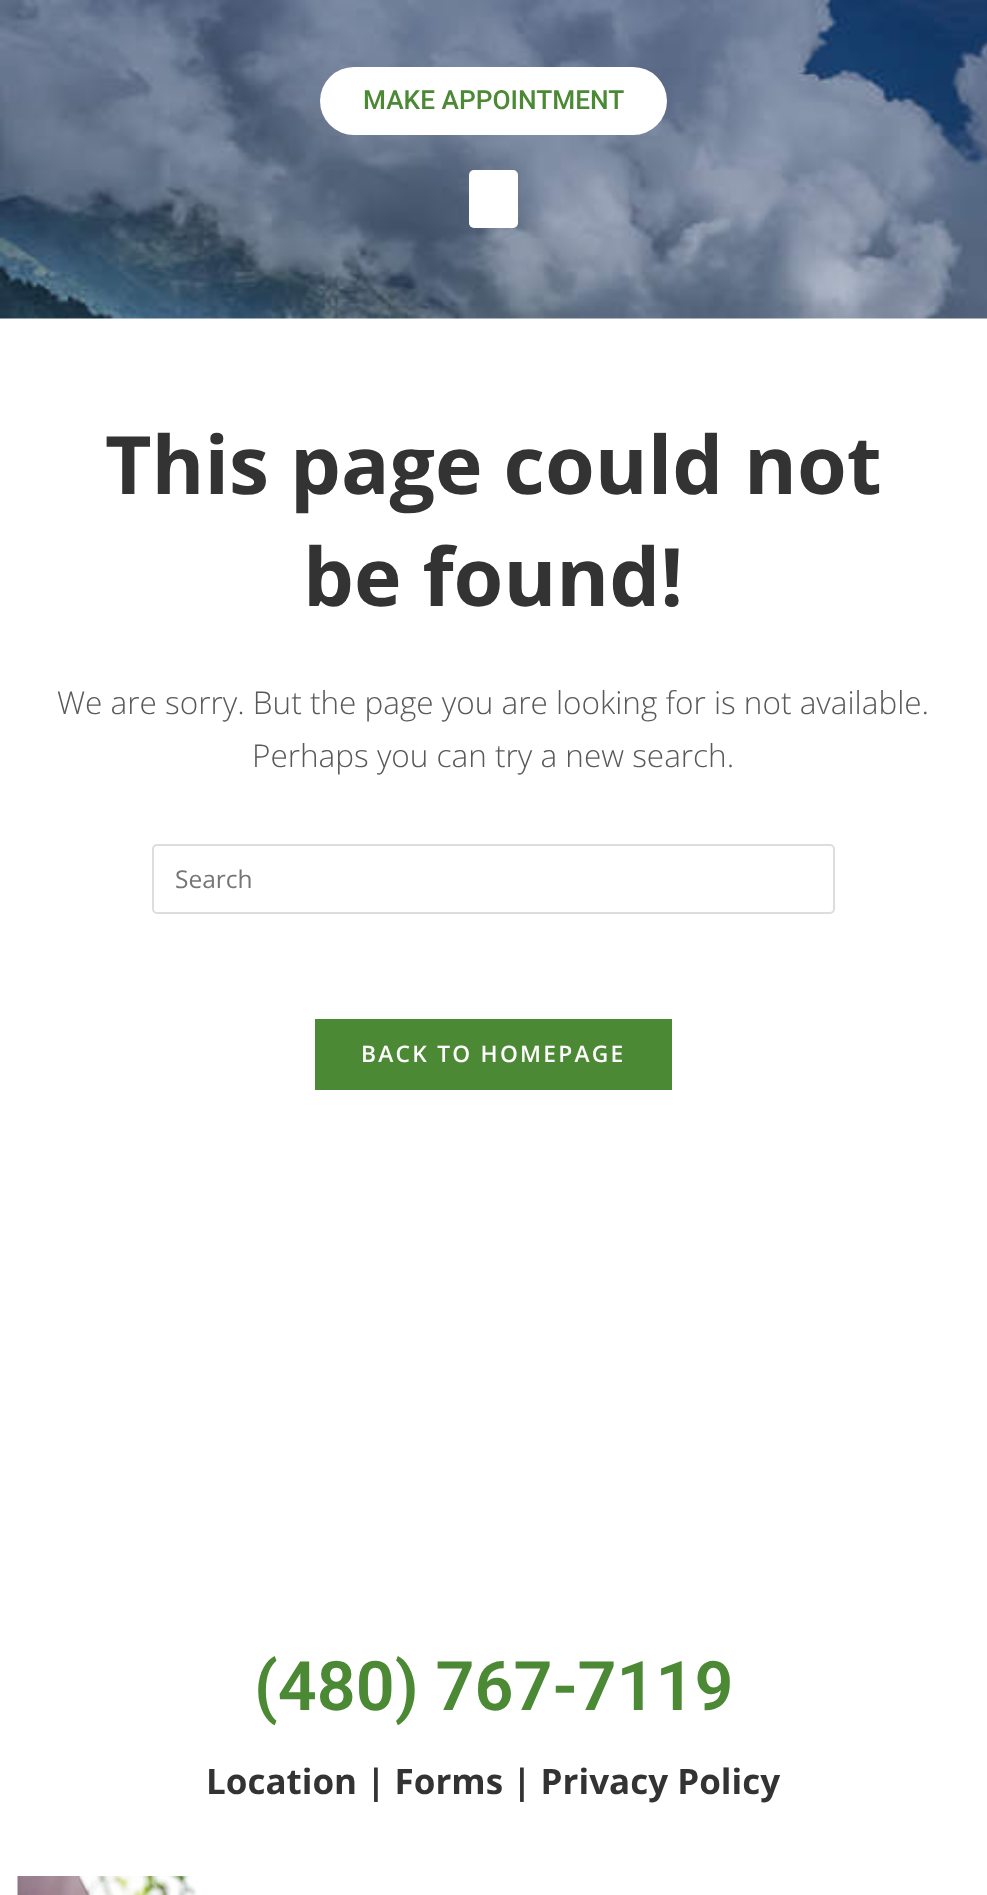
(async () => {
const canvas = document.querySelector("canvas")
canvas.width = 987
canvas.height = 1895
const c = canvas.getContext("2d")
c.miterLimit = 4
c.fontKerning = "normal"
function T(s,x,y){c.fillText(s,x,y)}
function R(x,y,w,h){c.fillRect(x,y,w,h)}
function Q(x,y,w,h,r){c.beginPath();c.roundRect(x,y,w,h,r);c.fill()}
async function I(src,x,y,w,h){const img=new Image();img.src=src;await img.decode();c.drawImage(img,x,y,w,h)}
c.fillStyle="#fff"
R(0,0,987,1895)
await I("1.png",0,0,987,319)
Q(320,67,347,68,34)
c.font="500 26.25px Roboto"
c.fillStyle="#4b8934"
T("MAKE APPOINTMENT",363,109)
c.fillStyle="#fff"
Q(469,170,49,58,5)
c.font="bold 80.5px Open Sans"
c.fillStyle="#333"
T("This page could not",105,494)
T("be found!",303,606)
c.font="300 31.5px Open Sans"
c.fillStyle="#595959"
T("We are sorry. But the page you are looking for is not available.",57,714)
T("Perhaps you can try a new search.",252,767)
c.beginPath()
c.roundRect(153,845,681,68,4)
c.strokeStyle="#ddd"
c.lineWidth=2
c.stroke()
c.font="24.5px Open Sans"
c.fillStyle="#757575"
T("Search",175,888)
c.fillStyle="#4b8934"
R(315,1019,357,71)
c.letterSpacing="2.25px"
c.font="600 22.75px Open Sans"
c.fillStyle="#fff"
T("BACK TO HOMEPAGE",361,1062)
c.letterSpacing="0px"
c.font="600 68.25px Roboto"
c.fillStyle="#4b8934"
T("(480) 767-7119",254,1710)
c.font="bold 35px Open Sans"
c.fillStyle="#333"
T("Location | Forms | Privacy Policy",206,1794)
await I("2.png",17,1876,180,19)
})()
